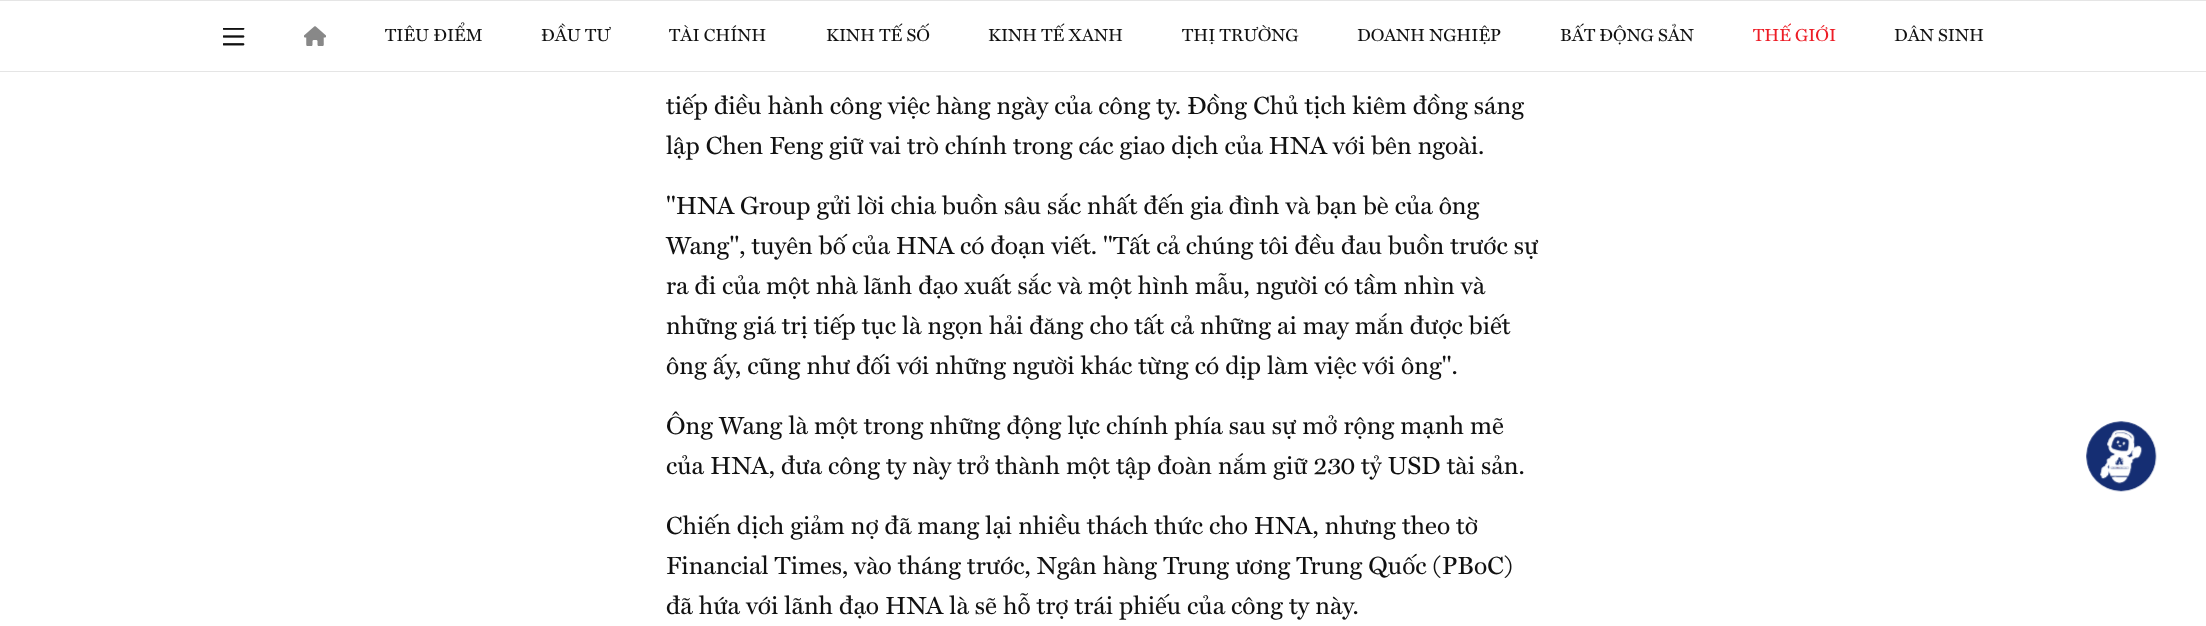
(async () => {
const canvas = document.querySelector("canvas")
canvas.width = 2206
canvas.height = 626
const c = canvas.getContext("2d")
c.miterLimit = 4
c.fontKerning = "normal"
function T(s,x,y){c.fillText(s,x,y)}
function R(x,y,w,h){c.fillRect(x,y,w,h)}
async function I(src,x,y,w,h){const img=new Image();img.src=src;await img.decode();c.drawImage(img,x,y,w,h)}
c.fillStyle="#fff"
R(0,0,2206,626)
c.fillStyle="#e5e5e5"
R(0,0,2206,1)
R(0,71,2206,1)
await I("1.png",223,28,22,18)
await I("2.png",304,26,22,20)
c.font="17.5px 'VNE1'"
c.fillStyle="#111"
T("TIÊU ĐIỂM",385,41)
T("ĐẦU TƯ",541,41)
T("TÀI CHÍNH",669,41)
T("KINH TẾ SỐ",826,41)
T("KINH TẾ XANH",988,41)
T("THỊ TRƯỜNG",1182,41)
T("DOANH NGHIỆP",1357,41)
T("BẤT ĐỘNG SẢN",1560,41)
c.fillStyle="#ed1d26"
T("THẾ GIỚI",1753,41)
c.fillStyle="#111"
T("DÂN SINH",1894,41)
c.font="25px 'VNE1'"
T("tiếp điều hành công việc hàng ngày của công ty. Đồng Chủ tịch kiêm đồng sáng",666,114)
T("lập Chen Feng giữ vai trò chính trong các giao dịch của HNA với bên ngoài.",666,154)
T("\"HNA Group gửi lời chia buồn sâu sắc nhất đến gia đình và bạn bè của ông",666,214)
T("Wang\", tuyên bố của HNA có đoạn viết. \"Tất cả chúng tôi đều đau buồn trước sự",666,254)
T("ra đi của một nhà lãnh đạo xuất sắc và một hình mẫu, người có tầm nhìn và",666,294)
T("những giá trị tiếp tục là ngọn hải đăng cho tất cả những ai may mắn được biết",666,334)
T("ông ấy, cũng như đối với những người khác từng có dịp làm việc với ông\".",666,374)
T("Ông Wang là một trong những động lực chính phía sau sự mở rộng mạnh mẽ",666,434)
T("của HNA, đưa công ty này trở thành một tập đoàn nắm giữ 230 tỷ USD tài sản.",666,474)
T("Chiến dịch giảm nợ đã mang lại nhiều thách thức cho HNA, nhưng theo tờ",666,534)
T("Financial Times, vào tháng trước, Ngân hàng Trung ương Trung Quốc (PBoC)",666,574)
T("đã hứa với lãnh đạo HNA là sẽ hỗ trợ trái phiếu của công ty này.",666,614)
await I("3.png",2086,421,71,71)
})()
